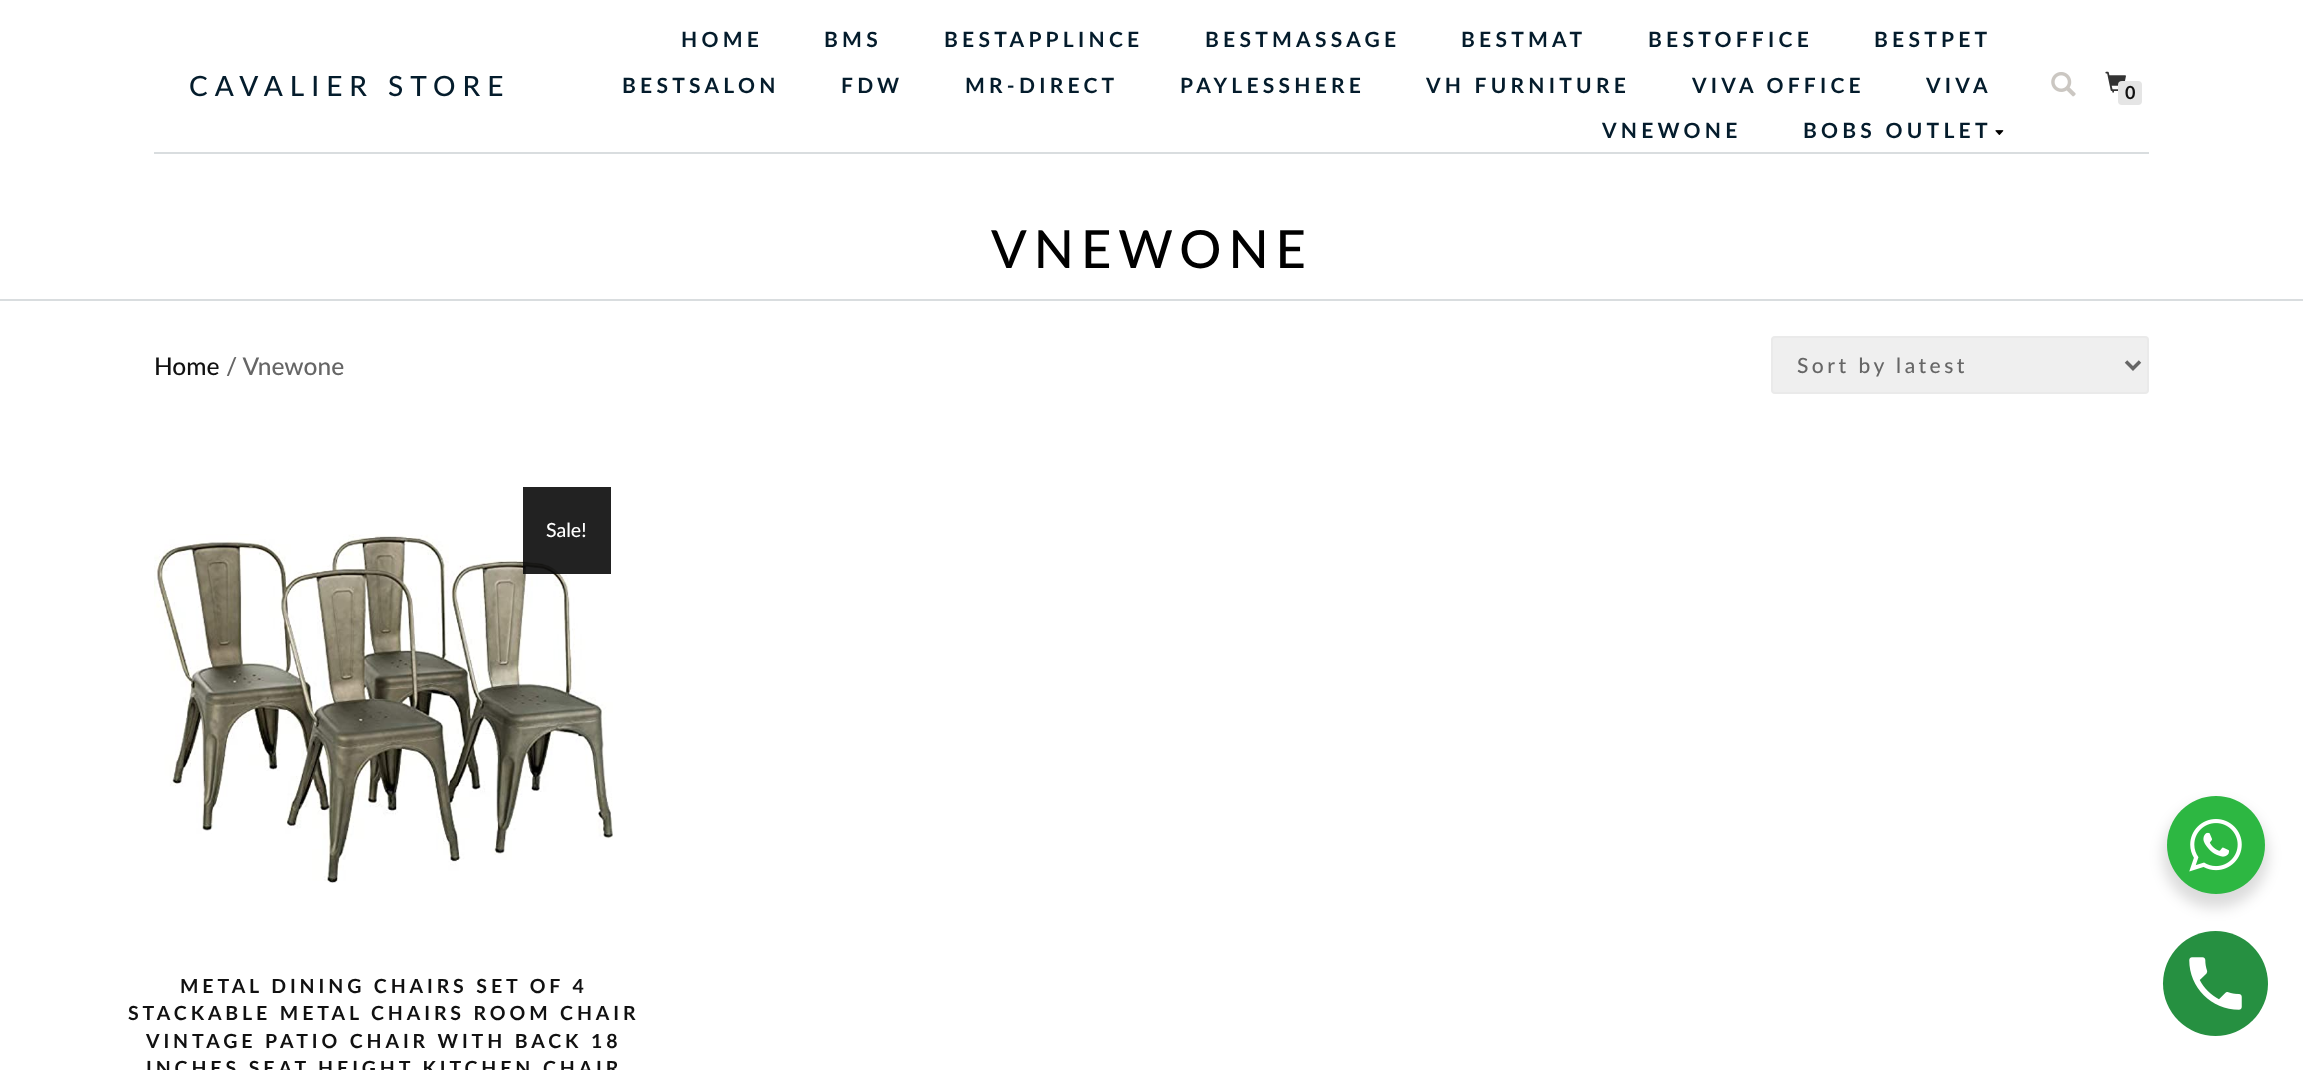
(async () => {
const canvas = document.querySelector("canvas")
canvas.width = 2303
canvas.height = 1070
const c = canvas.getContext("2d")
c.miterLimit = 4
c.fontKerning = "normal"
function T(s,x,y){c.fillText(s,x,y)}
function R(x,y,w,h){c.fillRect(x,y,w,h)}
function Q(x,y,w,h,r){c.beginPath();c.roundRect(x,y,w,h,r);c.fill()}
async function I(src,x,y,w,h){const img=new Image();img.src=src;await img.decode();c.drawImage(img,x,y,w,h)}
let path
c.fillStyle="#fff"
R(0,0,2303,1070)
c.fillStyle="#d9dddf"
R(154,152,1995,2)
c.letterSpacing="7px"
c.font="500 28px Lato"
c.fillStyle="#041c2c"
T("CAVALIER STORE",189,96)
c.letterSpacing="4.25px"
c.font="bold 21px Lato"
T("HOME",681,47)
T("BMS",824,47)
T("BESTAPPLINCE",944,47)
T("BESTMASSAGE",1205,47)
T("BESTMAT",1461,47)
T("BESTOFFICE",1648,47)
T("BESTPET",1874,47)
T("BESTSALON",622,93)
T("FDW",841,93)
T("MR-DIRECT",965,93)
T("PAYLESSHERE",1180,93)
T("VH FURNITURE",1426,93)
T("VIVA OFFICE",1692,93)
T("VIVA",1926,93)
T("VNEWONE",1602,138)
T("BOBS OUTLET",1803,138)
await I("1.png",1995,130,9,5)
await I("2.png",2051,72,25,25)
await I("3.png",2105,71,21,22)
c.fillStyle="#e5e5e5"
Q(2118,81,24,24,4)
c.letterSpacing="0px"
c.font="bold 18px Lato"
c.fillStyle="#111"
T("0",2125,99)
c.fillStyle="#d9dddf"
R(0,299,2303,2)
c.letterSpacing="7px"
c.font="500 52.5px Lato"
c.fillStyle="#000"
T("VNEWONE",991,268)
c.letterSpacing="0px"
c.font="500 24.5px Lato"
c.fillStyle="#111"
T("Home",154,375)
c.fillStyle="#666"
T("/ Vnewone",226,375)
c.fillStyle="#efefef"
c.beginPath()
c.roundRect(1772,337,376,56,3)
c.fill()
c.strokeStyle="#eaeaea"
c.lineWidth=2
c.stroke()
path = new Path2D("M2126 361.5l7 7l7-7")
c.strokeStyle="#666"
c.lineWidth=3.5
c.stroke(path)
c.letterSpacing="3.5px"
c.font="500 21px Lato"
c.fillStyle="#666"
T("Sort by latest",1797,373)
await I("4.png",154,534,459,349)
c.fillStyle="#0a0a0ae6"
R(523,487,88,87)
c.letterSpacing="0px"
c.font="500 19.5px Lato"
c.fillStyle="#fff"
T("Sale!",546,537)
c.letterSpacing="3.9px"
c.font="bold 19.5px Lato"
c.fillStyle="#111"
T("METAL DINING CHAIRS SET OF 4",180,993)
T("STACKABLE METAL CHAIRS ROOM CHAIR",128,1020)
T("VINTAGE PATIO CHAIR WITH BACK 18",146,1048)
T("INCHES SEAT HEIGHT KITCHEN CHAIR",146,1075)
c.fillStyle="#00000024"
c.filter="blur(7px)"
c.beginPath()
c.roundRect(2163,803,105,105,52.5)
c.fill()
c.filter="none"
c.fillStyle="#2db742"
c.beginPath()
c.arc(2216,845,49,0,7)
c.fill()
await I("5.png",2189,819,53,53)
c.fillStyle="#269041"
c.beginPath()
c.arc(2215.5,983.5,52.5,0,7)
c.fill()
await I("6.png",2189,957,53,53)
})()
